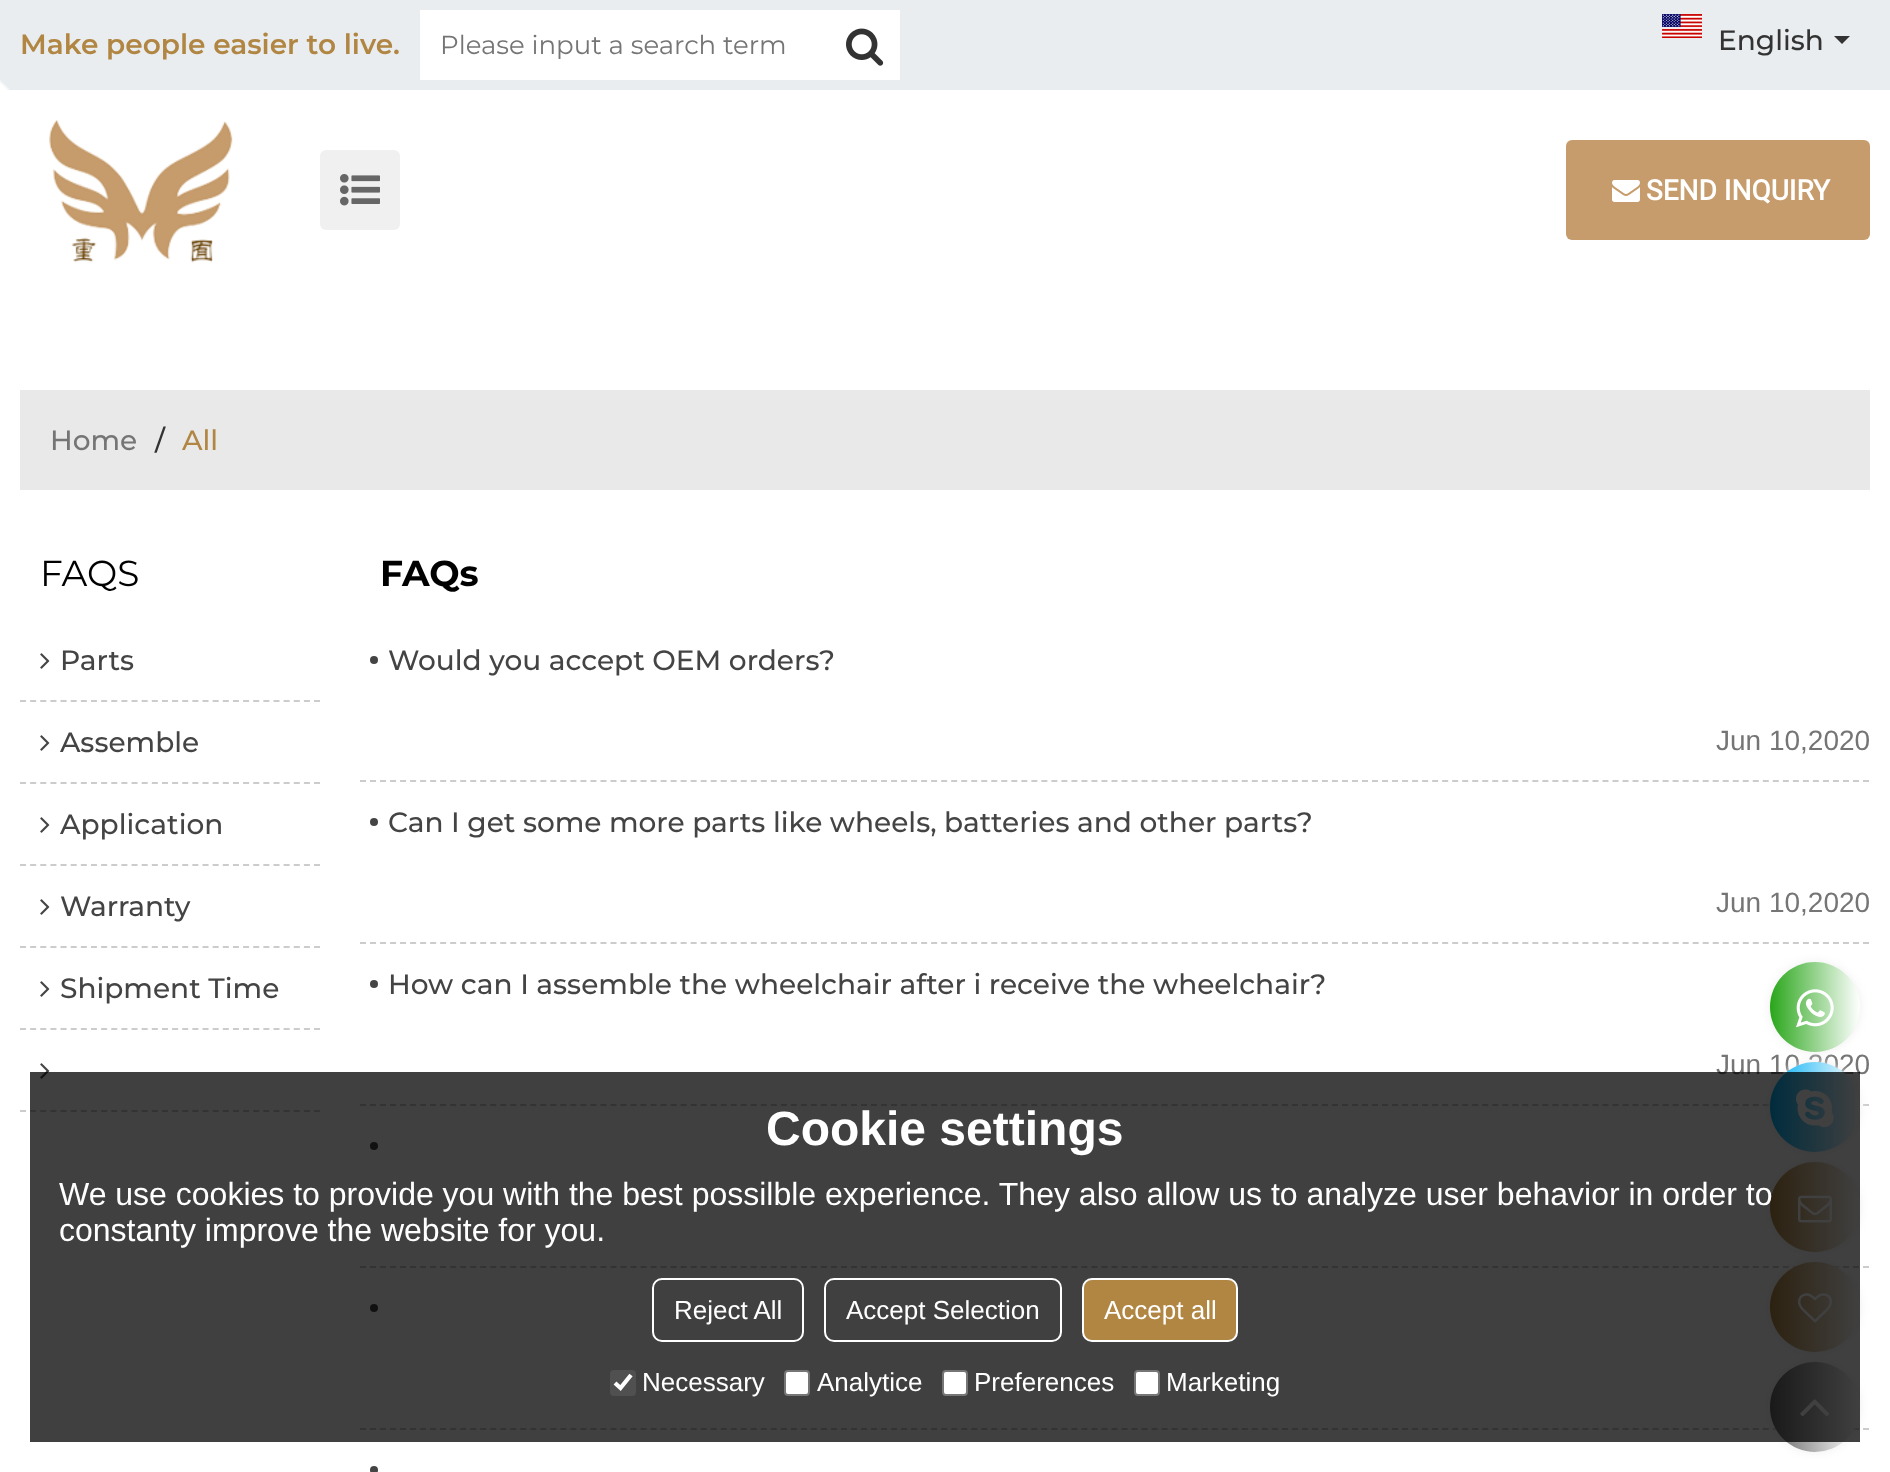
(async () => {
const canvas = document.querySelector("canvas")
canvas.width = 1890
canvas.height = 1472
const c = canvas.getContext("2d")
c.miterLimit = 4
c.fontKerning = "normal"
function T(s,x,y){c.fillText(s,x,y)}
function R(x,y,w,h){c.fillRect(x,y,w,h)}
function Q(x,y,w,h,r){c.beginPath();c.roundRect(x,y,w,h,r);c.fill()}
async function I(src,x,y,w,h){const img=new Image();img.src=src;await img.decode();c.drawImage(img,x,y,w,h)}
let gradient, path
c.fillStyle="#fff"
R(0,0,1890,1472)
await I("1.png",0,0,1890,90)
c.font="600 28px Montserrat"
c.fillStyle="#b18643"
T("Make people easier to live.",20,54)
c.fillStyle="#fff"
R(420,10,480,70)
c.font="26px Montserrat"
c.fillStyle="#757575"
T("Please input a search term",440,54)
await I("2.png",846,28,38,38)
await I("3.png",1662,14,40,24)
c.font="500 28px Montserrat"
c.fillStyle="#333"
T("English",1718,50)
path = new Path2D("M1834 36h16l-8 8z")
c.fill(path)
await I("4.png",49,119,184,144)
c.fillStyle="#f0f0f0"
Q(320,150,80,80,6)
await I("5.png",340,174,40,32)
c.fillStyle="#c69c6c"
Q(1566,140,304,100,6)
await I("6.png",1612,180,28,22)
c.font="bold 28px Roboto"
c.fillStyle="#fff"
T("SEND INQUIRY",1646,200)
c.fillStyle="#e9e9e9"
R(20,390,1850,100)
c.font="500 28px Montserrat"
c.fillStyle="#757575"
T("Home",50,450)
c.fillStyle="#333"
T("/",155,450)
c.fillStyle="#b18643"
T("All",182,450)
c.font="36px Montserrat"
c.fillStyle="#000"
T("FAQS",40,586)
path = new Path2D("M20 701h300")
c.strokeStyle="#ccc"
c.lineWidth=2
c.setLineDash([6,4.14])
c.stroke(path)
await I("7.png",40,653,10,16)
c.font="500 28px Montserrat"
c.fillStyle="#444"
T("Parts",60,670)
path = new Path2D("M20 783h300")
c.stroke(path)
await I("7.png",40,735,10,16)
T("Assemble",60,752)
path = new Path2D("M20 865h300")
c.stroke(path)
await I("7.png",40,817,10,16)
T("Application",60,834)
path = new Path2D("M20 947h300")
c.stroke(path)
await I("7.png",40,899,10,16)
T("Warranty",60,916)
path = new Path2D("M20 1029h300")
c.stroke(path)
await I("7.png",40,981,10,16)
T("Shipment Time",60,998)
path = new Path2D("M20 1111h300")
c.stroke(path)
await I("7.png",40,1063,10,16)
c.font="bold 36px Montserrat"
c.fillStyle="#000"
T("FAQs",380,586)
path = new Path2D("M360 781h1510")
c.setLineDash([6,4.02])
c.stroke(path)
c.fillStyle="#444"
c.beginPath()
c.arc(374,660,4,0,7)
c.fill()
c.font="500 28px Montserrat"
T("Would you accept OEM orders?",388,670)
c.font="28px Liberation Sans"
c.fillStyle="#757575"
T("Jun 10,2020",1716,750)
path = new Path2D("M360 943h1510")
c.stroke(path)
c.fillStyle="#444"
c.beginPath()
c.arc(374,822,4,0,7)
c.fill()
c.font="500 28px Montserrat"
T("Can I get some more parts like wheels, batteries and other parts?",388,832)
c.font="28px Liberation Sans"
c.fillStyle="#757575"
T("Jun 10,2020",1716,912)
path = new Path2D("M360 1105h1510")
c.stroke(path)
c.fillStyle="#444"
c.beginPath()
c.arc(374,984,4,0,7)
c.fill()
c.font="500 28px Montserrat"
T("How can I assemble the wheelchair after i receive the wheelchair?",388,994)
c.font="28px Liberation Sans"
c.fillStyle="#757575"
T("Jun 10,2020",1716,1074)
path = new Path2D("M360 1267h1510")
c.stroke(path)
c.fillStyle="#444"
c.beginPath()
c.arc(374,1146,4,0,7)
c.fill()
path = new Path2D("M360 1429h1510")
c.stroke(path)
c.beginPath()
c.arc(374,1308,4,0,7)
c.fill()
c.beginPath()
c.arc(374,1470,4,0,7)
c.fill()
c.fillStyle="#eee"
c.filter="blur(5px)"
c.beginPath()
c.roundRect(1770,962,90,90,45)
c.fill()
c.filter="none"
gradient = c.createLinearGradient(1770,1007,1860,1007)
gradient.addColorStop(0,"#29a61a")
gradient.addColorStop(1,"#fff")
c.fillStyle = gradient
c.beginPath()
c.arc(1815,1007,45,0,7)
c.fill()
c.fillStyle="#eee"
c.filter="blur(5px)"
c.beginPath()
c.roundRect(1770,1062,90,90,45)
c.fill()
c.filter="none"
gradient = c.createLinearGradient(1770,1107,1860,1107)
gradient.addColorStop(0,"#01aef3")
gradient.addColorStop(1,"#fff")
c.fillStyle = gradient
c.beginPath()
c.arc(1815,1107,45,0,7)
c.fill()
await I("9.png",1796,1089,38,39)
c.fillStyle="#eee"
c.filter="blur(5px)"
c.beginPath()
c.roundRect(1770,1162,90,90,45)
c.fill()
c.filter="none"
gradient = c.createLinearGradient(1770,1207,1860,1207)
gradient.addColorStop(0,"#b18643")
gradient.addColorStop(1,"#fff")
c.fillStyle = gradient
c.beginPath()
c.arc(1815,1207,45,0,7)
c.fill()
await I("10.png",1798,1195,34,28)
c.fillStyle="#eee"
c.filter="blur(5px)"
c.beginPath()
c.roundRect(1770,1262,90,90,45)
c.fill()
c.filter="none"
gradient = c.createLinearGradient(1770,1307,1860,1307)
gradient.addColorStop(0,"#b18643")
gradient.addColorStop(1,"#fff")
c.fillStyle = gradient
c.beginPath()
c.arc(1815,1307,45,0,7)
c.fill()
await I("11.png",1798,1293,34,30)
c.fillStyle="#eee"
c.filter="blur(5px)"
c.beginPath()
c.roundRect(1770,1362,90,90,45)
c.fill()
c.filter="none"
gradient = c.createLinearGradient(1770,1407,1860,1407)
gradient.addColorStop(0,"#666")
gradient.addColorStop(1,"#fff")
c.fillStyle = gradient
c.beginPath()
c.arc(1815,1407,45,0,7)
c.fill()
await I("12.png",1800,1399,30,18)
c.fillStyle="#000000bf"
R(30,1072,1830,370)
c.font="bold 48px Liberation Sans"
c.fillStyle="#fff"
T("Cookie settings",766,1145)
c.font="32px Liberation Sans"
T("We use cookies to provide you with the best possilble experience. They also allow us to analyze user behavior in order to",59,1205)
T("constanty improve the website for you.",59,1241)
c.beginPath()
c.roundRect(653,1279,150,62,9)
c.strokeStyle="#fff"
c.setLineDash([])
c.stroke()
c.font="26px Liberation Sans"
T("Reject All",674,1319)
c.beginPath()
c.roundRect(825,1279,236,62,9)
c.stroke()
T("Accept Selection",846,1319)
c.fillStyle="#b18643"
c.beginPath()
c.roundRect(1083,1279,154,62,9)
c.fill()
c.stroke()
c.fillStyle="#fff"
T("Accept all",1104,1319)
c.fillStyle="#505050"
Q(610,1370,26,26,4)
path = new Path2D("M615 1383l5.5 5l10.5-13")
c.lineWidth=4.2
c.stroke(path)
c.fillStyle="#fff"
T("Necessary",642,1391)
c.beginPath()
c.roundRect(785,1371,24,24,3)
c.fill()
c.strokeStyle="#767676"
c.lineWidth=2
c.stroke()
T("Analytice",817,1391)
c.beginPath()
c.roundRect(943,1371,24,24,3)
c.fill()
c.stroke()
T("Preferences",974,1391)
c.beginPath()
c.roundRect(1135,1371,24,24,3)
c.fill()
c.stroke()
T("Marketing",1166,1391)
await I("8.png",1796,989,38,39)
})()
